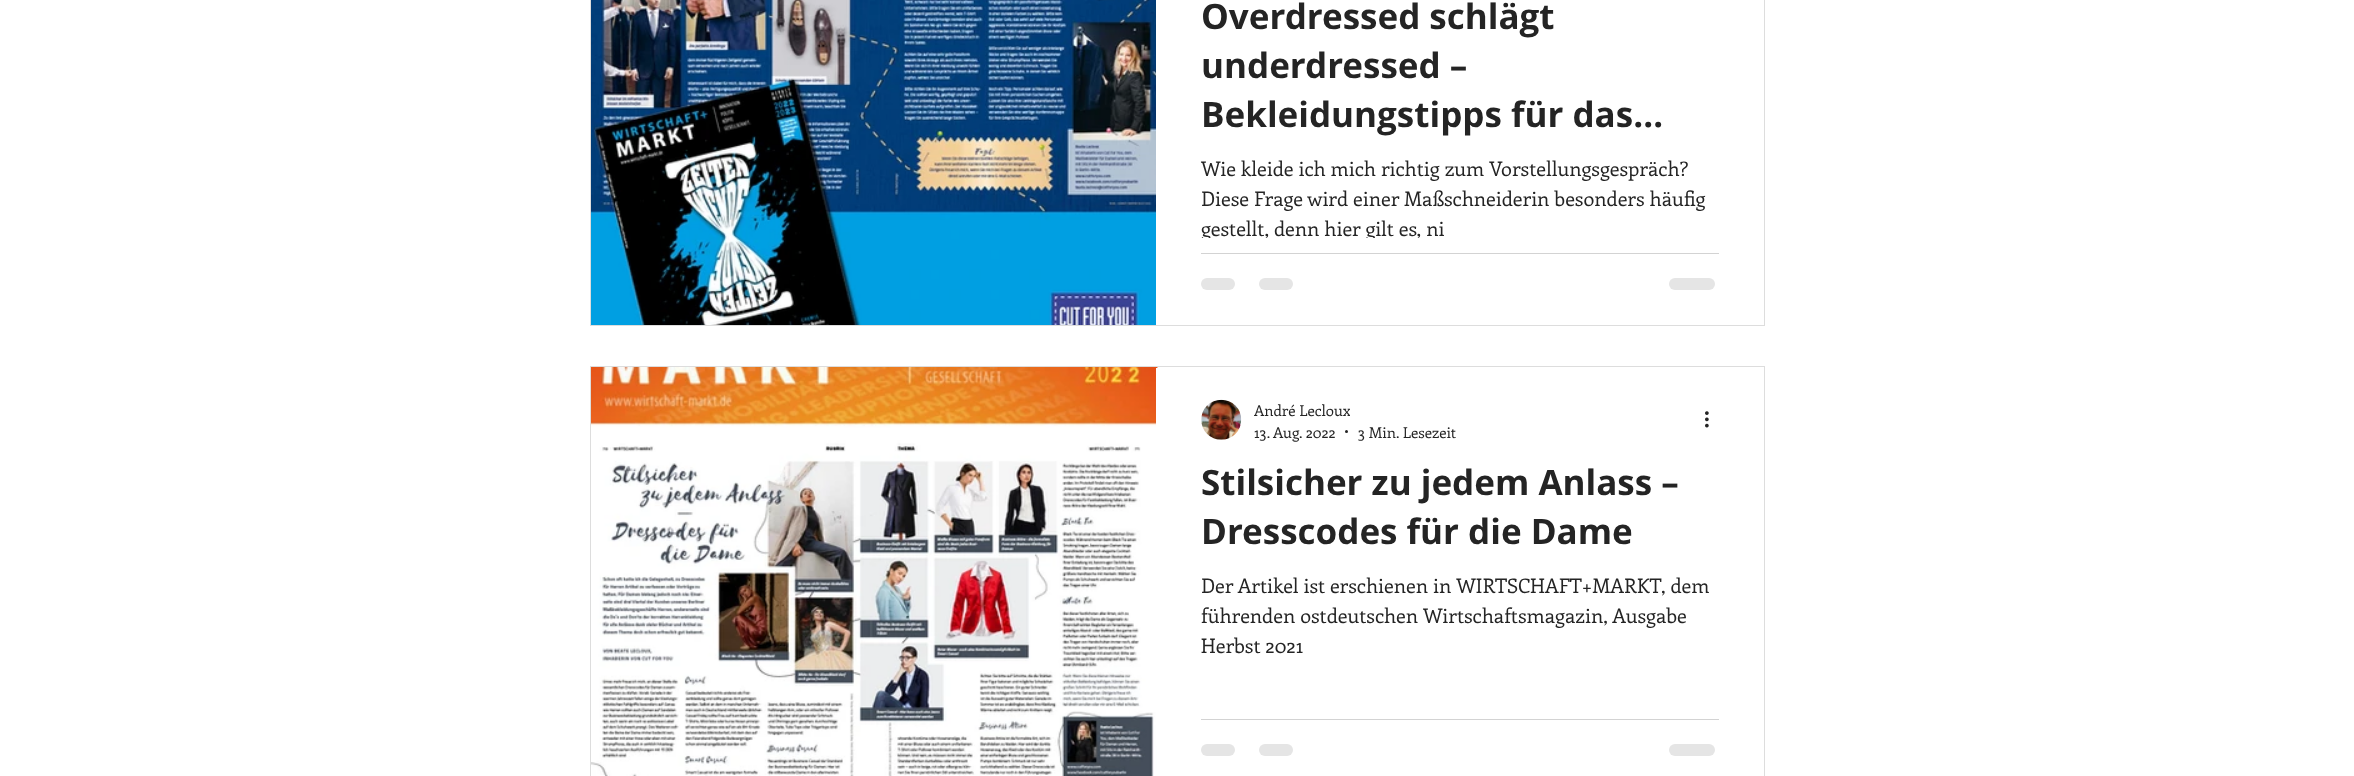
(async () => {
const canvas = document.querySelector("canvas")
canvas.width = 2354
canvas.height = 776
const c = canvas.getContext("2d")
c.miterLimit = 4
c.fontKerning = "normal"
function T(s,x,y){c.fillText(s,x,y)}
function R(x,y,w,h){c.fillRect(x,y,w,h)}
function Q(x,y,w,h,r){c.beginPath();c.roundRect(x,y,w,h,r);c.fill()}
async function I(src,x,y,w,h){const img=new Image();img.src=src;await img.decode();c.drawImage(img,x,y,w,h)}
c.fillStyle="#fff"
R(0,0,2354,776)
c.strokeStyle="#ddd"
c.strokeRect(590.5,-.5,1174,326)
await I("1.png",591,0,565,325)
c.font="bold 35px Open Sans"
c.fillStyle="#242424"
T("Overdressed schlägt",1201,29)
T("underdressed –",1201,78)
T("Bekleidungstipps für das…",1201,127)
c.font="20px Enriqueta"
T("Wie kleide ich mich richtig zum Vorstellungsgespräch?",1201,176)
T("Diese Frage wird einer Maßschneiderin besonders häufig",1201,206)
c.save()
c.beginPath()
c.rect(1201,154,518,84)
c.clip()
T("gestellt, denn hier gilt es, ni",1201,236)
c.restore()
c.fillStyle="#d3d3d3"
R(1201,253,518,1)
c.fillStyle="#e5e5e5"
Q(1201,278,34,12,6)
Q(1259,278,34,12,6)
Q(1669,278,46,12,6)
c.strokeRect(590.5,366.5,1174,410)
await I("2.png",591,367,566,409)
await I("3.png",1157,367,1,1)
c.fillStyle="#fff"
R(1156,368,1,378)
await I("4.png",1201,399,41,41)
c.save()
c.beginPath()
c.rect(1254,400,96,20)
c.clip()
c.font="15px Enriqueta"
c.fillStyle="#242424"
T("André Lecloux",1254,416)
c.restore()
c.font="15px Enriqueta"
c.fillStyle="#242424"
T("13. Aug. 2022",1254,438)
c.beginPath()
c.arc(1346.5,431.5,1.5,0,7)
c.fill()
T("3 Min. Lesezeit",1358,438)
await I("5.png",1705,411,4,17)
c.font="bold 35px Open Sans"
T("Stilsicher zu jedem Anlass –",1201,495)
T("Dresscodes für die Dame",1201,544)
c.font="20px Enriqueta"
T("Der Artikel ist erschienen in WIRTSCHAFT+MARKT, dem",1201,593)
T("führenden ostdeutschen Wirtschaftsmagazin, Ausgabe",1201,623)
T("Herbst 2021",1201,653)
c.fillStyle="#d3d3d3"
R(1201,719,518,1)
c.fillStyle="#e5e5e5"
Q(1201,744,34,12,6)
Q(1259,744,34,12,6)
Q(1669,744,46,12,6)
})()
